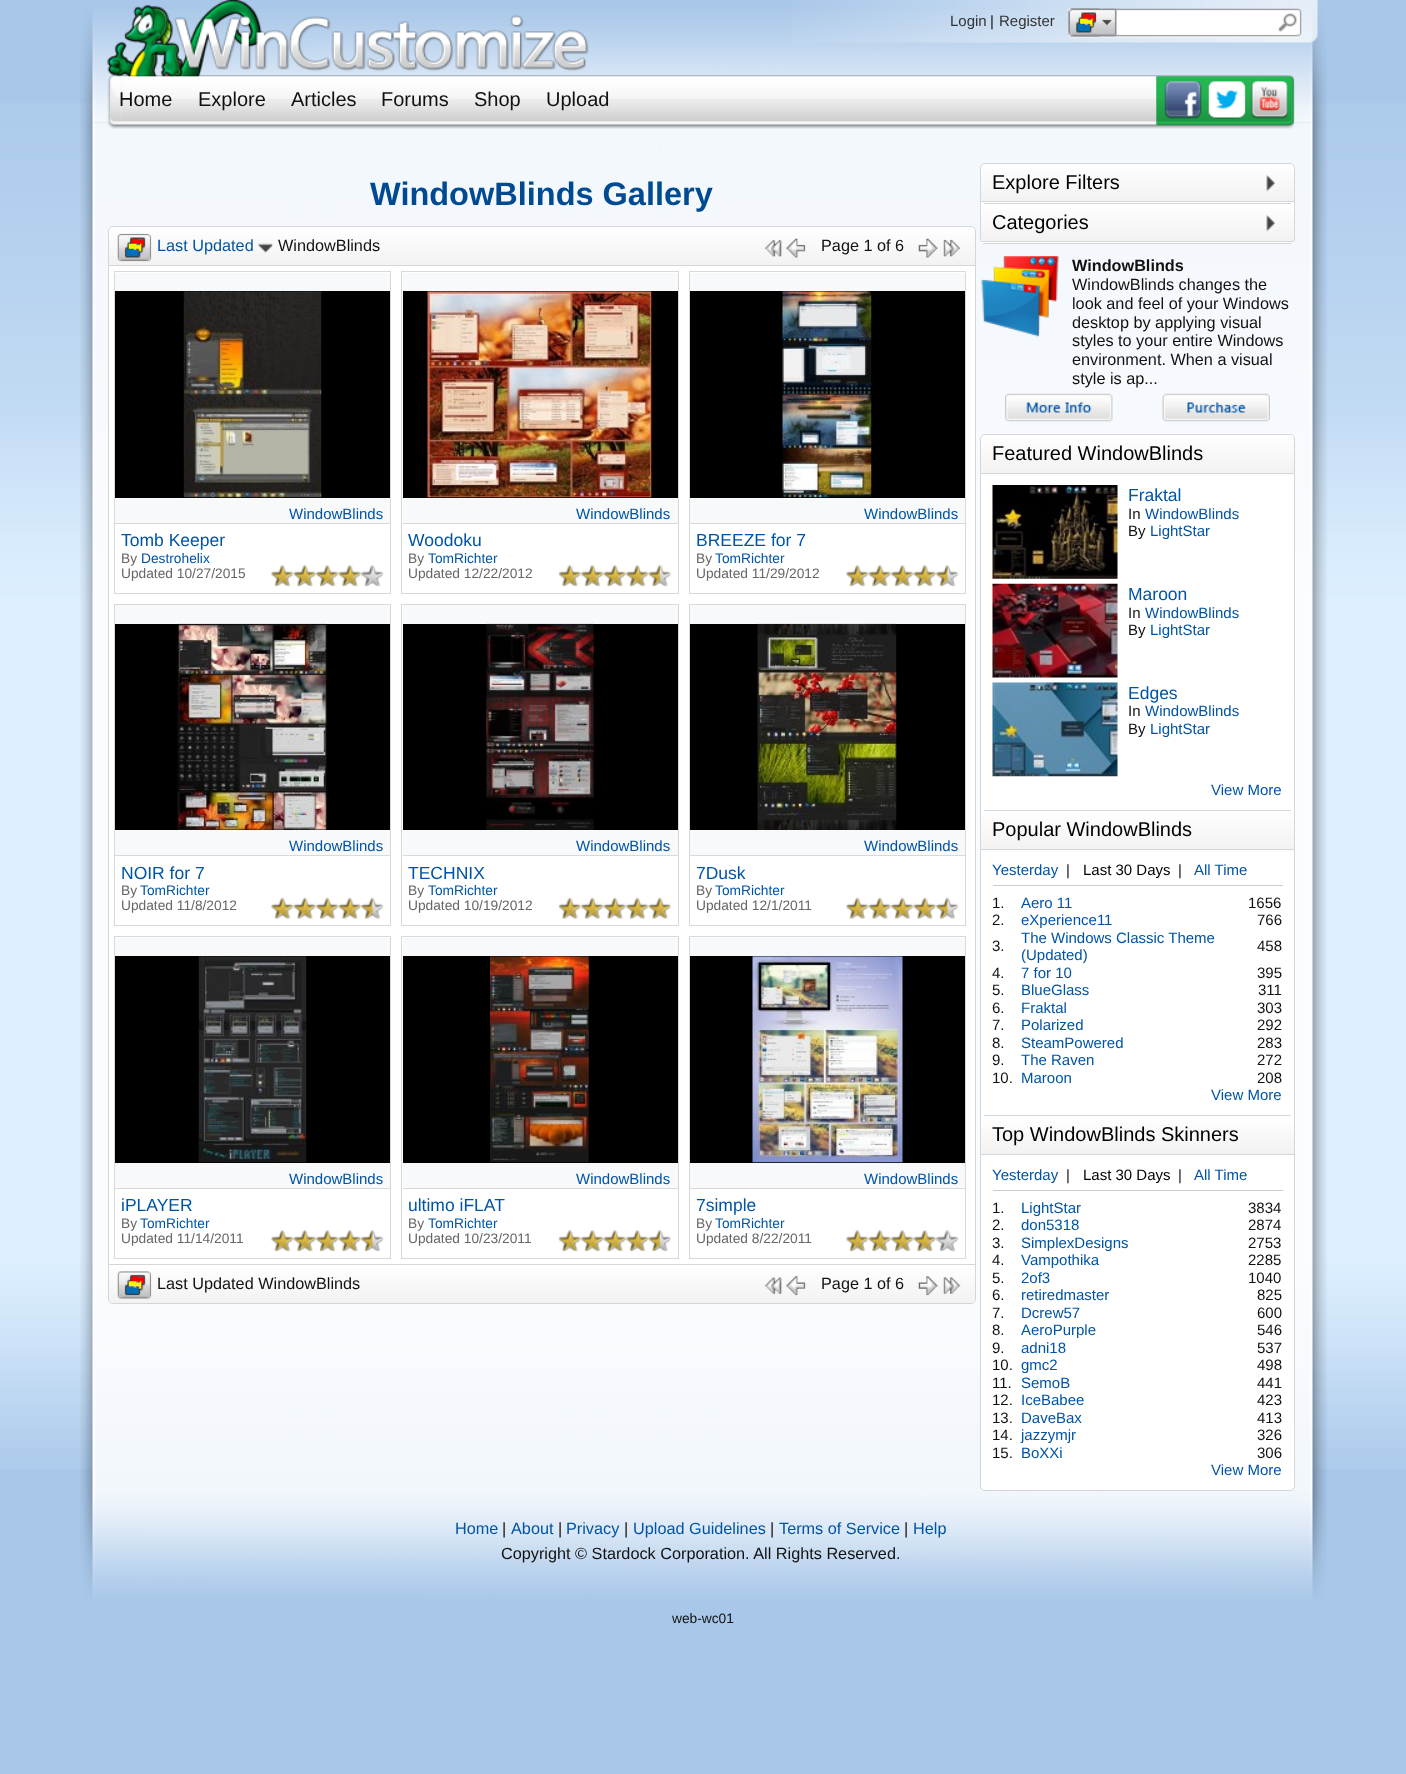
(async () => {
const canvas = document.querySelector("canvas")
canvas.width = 1406
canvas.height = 1774
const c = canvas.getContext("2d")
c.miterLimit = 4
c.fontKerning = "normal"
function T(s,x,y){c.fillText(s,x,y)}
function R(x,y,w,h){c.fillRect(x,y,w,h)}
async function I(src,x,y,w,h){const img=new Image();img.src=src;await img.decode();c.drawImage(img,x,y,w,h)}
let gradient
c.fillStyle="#a8c7e9"
R(0,0,1406,1774)
await I("1.png",0,103,1406,1366)
await I("2.png",80,9,1247,114)
await I("3.png",107,0,482,77)
await I("4.png",792,0,526,43)
c.font="15px Liberation Sans"
c.fillStyle="#333"
T("Login",950,26)
c.fillStyle="#111"
T("|",990,26)
c.fillStyle="#333"
T("Register",999,26)
await I("5.png",1068,8,234,30)
await I("6.png",1068,8,35,29)
await I("7.png",1068,8,35,29)
await I("8.png",1070,8,47,29)
await I("45.png",80,122,1247,1363)
await I("9.png",107,75,15,54)
await I("10.png",121,75,1036,54)
await I("11.png",1156,75,139,54)
c.font="20px Liberation Sans"
c.fillStyle="#111"
T("Home",119,106)
T("Explore",198,106)
T("Articles",291,106)
T("Forums",381,106)
T("Shop",474,106)
T("Upload",546,106)
await I("12.png",1164,81,124,38)
c.font="bold 32.5px Liberation Sans"
c.fillStyle="#004a92"
T("WindowBlinds Gallery",370,205)
c.fillStyle="#fff"
c.beginPath()
c.roundRect(108.5,226.5,867,1077,4.5)
c.fill()
c.strokeStyle="#d4d6da"
c.stroke()
gradient = c.createLinearGradient(542,227,542,265)
gradient.addColorStop(0,"#fff")
gradient.addColorStop(1,"#f2f2f2")
c.fillStyle = gradient
c.beginPath()
c.roundRect(109,228,866,37,[5,5,0,0])
c.fill()
c.fillStyle="#d4d6da"
R(109,265,866,1)
await I("13.png",117,233,35,29)
c.font="16.25px Liberation Sans"
c.fillStyle="#0054a6"
T("Last Updated",157,251)
await I("14.png",257,243,16,10)
c.fillStyle="#111"
T("WindowBlinds",278,251)
await I("15.png",764,239,18,18)
await I("16.png",786,238,20,20)
T("Page 1 of 6",821,251)
await I("17.png",918,238,20,20)
await I("18.png",943,239,18,18)
c.strokeStyle="#d8d9db"
c.strokeRect(114.5,271.5,276,322)
c.fillStyle="#f8f9fb"
R(115,273,275,250)
c.fillStyle="#000"
R(115,291,275,207)
await I("19.png",183,291,139,207)
c.font="15px Liberation Sans"
c.fillStyle="#0054a6"
T("WindowBlinds",289,519)
c.fillStyle="#d8d9db"
R(115,523,275,1)
c.font="17.5px Liberation Sans"
c.fillStyle="#0054a6"
T("Tomb Keeper",121,546)
c.font="13.75px Liberation Sans"
c.fillStyle="#666"
T("By",121,563)
c.fillStyle="#0054a6"
T("Destrohelix",141,563)
c.fillStyle="#666"
T("Updated 10/27/2015",121,578)
await I("20.png",271,565,113,22)
c.strokeRect(401.5,271.5,277,322)
c.fillStyle="#f8f9fb"
R(403,273,275,250)
c.fillStyle="#000"
R(403,291,275,207)
await I("21.png",427,291,225,207)
c.font="15px Liberation Sans"
c.fillStyle="#0054a6"
T("WindowBlinds",576,519)
c.fillStyle="#d8d9db"
R(403,523,275,1)
c.font="17.5px Liberation Sans"
c.fillStyle="#0054a6"
T("Woodoku",408,546)
c.font="13.75px Liberation Sans"
c.fillStyle="#666"
T("By",408,563)
c.fillStyle="#0054a6"
T("TomRichter",428,563)
c.fillStyle="#666"
T("Updated 12/22/2012",408,578)
await I("22.png",558,565,113,22)
c.strokeRect(689.5,271.5,276,322)
c.fillStyle="#f8f9fb"
R(690,273,275,250)
c.fillStyle="#000"
R(690,291,275,207)
await I("23.png",782,291,90,207)
c.font="15px Liberation Sans"
c.fillStyle="#0054a6"
T("WindowBlinds",864,519)
c.fillStyle="#d8d9db"
R(690,523,275,1)
c.font="17.5px Liberation Sans"
c.fillStyle="#0054a6"
T("BREEZE for 7",696,546)
c.font="13.75px Liberation Sans"
c.fillStyle="#666"
T("By",696,563)
c.fillStyle="#0054a6"
T("TomRichter",715,563)
c.fillStyle="#666"
T("Updated 11/29/2012",696,578)
await I("24.png",846,565,113,22)
c.strokeRect(114.5,604.5,276,321)
c.fillStyle="#f8f9fb"
R(115,605,275,250)
c.fillStyle="#000"
R(115,624,275,206)
await I("25.png",177,623,150,207)
c.font="15px Liberation Sans"
c.fillStyle="#0054a6"
T("WindowBlinds",289,851)
c.fillStyle="#d8d9db"
R(115,855,275,1)
c.font="17.5px Liberation Sans"
c.fillStyle="#0054a6"
T("NOIR for 7",121,879)
c.font="13.75px Liberation Sans"
c.fillStyle="#666"
T("By",121,895)
c.fillStyle="#0054a6"
T("TomRichter",140,895)
c.fillStyle="#666"
T("Updated 11/8/2012",121,910)
await I("26.png",271,897,113,22)
c.strokeRect(401.5,604.5,277,321)
c.fillStyle="#f8f9fb"
R(403,605,275,250)
c.fillStyle="#000"
R(403,624,275,206)
await I("27.png",486,623,108,207)
c.font="15px Liberation Sans"
c.fillStyle="#0054a6"
T("WindowBlinds",576,851)
c.fillStyle="#d8d9db"
R(403,855,275,1)
c.font="17.5px Liberation Sans"
c.fillStyle="#0054a6"
T("TECHNIX",408,879)
c.font="13.75px Liberation Sans"
c.fillStyle="#666"
T("By",408,895)
c.fillStyle="#0054a6"
T("TomRichter",428,895)
c.fillStyle="#666"
T("Updated 10/19/2012",408,910)
await I("28.png",558,897,113,22)
c.strokeRect(689.5,604.5,276,321)
c.fillStyle="#f8f9fb"
R(690,605,275,250)
c.fillStyle="#000"
R(690,624,275,206)
await I("29.png",757,623,140,207)
c.font="15px Liberation Sans"
c.fillStyle="#0054a6"
T("WindowBlinds",864,851)
c.fillStyle="#d8d9db"
R(690,855,275,1)
c.font="17.5px Liberation Sans"
c.fillStyle="#0054a6"
T("7Dusk",696,879)
c.font="13.75px Liberation Sans"
c.fillStyle="#666"
T("By",696,895)
c.fillStyle="#0054a6"
T("TomRichter",715,895)
c.fillStyle="#666"
T("Updated 12/1/2011",696,910)
await I("26.png",846,897,113,22)
c.strokeRect(114.5,936.5,276,322)
c.fillStyle="#f8f9fb"
R(115,938,275,250)
c.fillStyle="#000"
R(115,956,275,207)
await I("30.png",198,956,109,207)
c.font="15px Liberation Sans"
c.fillStyle="#0054a6"
T("WindowBlinds",289,1184)
c.fillStyle="#d8d9db"
R(115,1188,275,1)
c.font="17.5px Liberation Sans"
c.fillStyle="#0054a6"
T("iPLAYER",121,1211)
c.font="13.75px Liberation Sans"
c.fillStyle="#666"
T("By",121,1228)
c.fillStyle="#0054a6"
T("TomRichter",140,1228)
c.fillStyle="#666"
T("Updated 11/14/2011",121,1243)
await I("24.png",271,1230,113,22)
c.strokeRect(401.5,936.5,277,322)
c.fillStyle="#f8f9fb"
R(403,938,275,250)
c.fillStyle="#000"
R(403,956,275,207)
await I("31.png",490,956,99,207)
c.font="15px Liberation Sans"
c.fillStyle="#0054a6"
T("WindowBlinds",576,1184)
c.fillStyle="#d8d9db"
R(403,1188,275,1)
c.font="17.5px Liberation Sans"
c.fillStyle="#0054a6"
T("ultimo iFLAT",408,1211)
c.font="13.75px Liberation Sans"
c.fillStyle="#666"
T("By",408,1228)
c.fillStyle="#0054a6"
T("TomRichter",428,1228)
c.fillStyle="#666"
T("Updated 10/23/2011",408,1243)
await I("22.png",558,1230,113,22)
c.strokeRect(689.5,936.5,276,322)
c.fillStyle="#f8f9fb"
R(690,938,275,250)
c.fillStyle="#000"
R(690,956,275,207)
await I("32.png",752,956,151,207)
c.font="15px Liberation Sans"
c.fillStyle="#0054a6"
T("WindowBlinds",864,1184)
c.fillStyle="#d8d9db"
R(690,1188,275,1)
c.font="17.5px Liberation Sans"
c.fillStyle="#0054a6"
T("7simple",696,1211)
c.font="13.75px Liberation Sans"
c.fillStyle="#666"
T("By",696,1228)
c.fillStyle="#0054a6"
T("TomRichter",715,1228)
c.fillStyle="#666"
T("Updated 8/22/2011",696,1243)
await I("20.png",846,1230,113,22)
gradient = c.createLinearGradient(542,1265,542,1303)
gradient.addColorStop(0,"#fff")
gradient.addColorStop(1,"#f2f2f2")
c.fillStyle = gradient
c.beginPath()
c.roundRect(109,1265,866,38,[0,0,5,5])
c.fill()
c.fillStyle="#d4d6da"
R(109,1264,866,1)
await I("33.png",117,1271,35,28)
c.font="16.25px Liberation Sans"
c.fillStyle="#111"
T("Last Updated WindowBlinds",157,1289)
await I("34.png",764,1277,18,17)
await I("35.png",786,1276,20,20)
T("Page 1 of 6",821,1289)
await I("36.png",918,1276,20,20)
await I("37.png",943,1277,18,17)
c.fillStyle="#fff"
c.beginPath()
c.roundRect(980.5,163.5,314,80,4.5)
c.fill()
c.strokeStyle="#d4d6da"
c.stroke()
gradient = c.createLinearGradient(1138,164,1138,201)
gradient.addColorStop(0,"#fff")
gradient.addColorStop(1,"#f2f2f2")
c.fillStyle = gradient
c.beginPath()
c.roundRect(981,164,313,37,[5,5,0,0])
c.fill()
c.fillStyle="#d4d6da"
R(981,201,313,1)
c.font="20px Liberation Sans"
c.fillStyle="#000"
T("Explore Filters",992,189)
await I("38.png",1266,175,10,17)
c.save()
c.beginPath()
c.roundRect(981,203,313,40,[5,5,0,0])
c.clip()
gradient = c.createLinearGradient(1138,166,1138,204)
gradient.addColorStop(0,"#fff")
gradient.addColorStop(1,"#f2f2f2")
c.fillStyle = gradient
R(981,203,313,1)
gradient = c.createLinearGradient(1138,204,1138,241)
gradient.addColorStop(0,"#fff")
gradient.addColorStop(1,"#f2f2f2")
c.fillStyle = gradient
R(981,204,313,37)
c.restore()
gradient = c.createLinearGradient(1138,241,1138,279)
gradient.addColorStop(0,"#fff")
gradient.addColorStop(1,"#f2f2f2")
c.fillStyle = gradient
R(981,242,313,1)
c.fillStyle="#d4d6da"
R(984,203,307,1)
R(981,241,313,1)
c.fillStyle="#000"
T("Categories",992,229)
await I("38.png",1266,215,10,17)
await I("39.png",981,256,78,81)
c.font="bold 16.25px Liberation Sans"
c.fillStyle="#111"
T("WindowBlinds",1072,271)
c.font="16.25px Liberation Sans"
T("WindowBlinds changes the",1072,290)
T("look and feel of your Windows",1072,309)
T("desktop by applying visual",1072,328)
T("styles to your entire Windows",1072,346)
T("environment. When a visual",1072,365)
T("style is ap...",1072,384)
await I("40.png",1005,393,108,29)
await I("41.png",1162,393,108,29)
await I("46.png",80,1485,1247,114)
c.fillStyle="#fff"
c.beginPath()
c.roundRect(980.5,434.5,314,1056,4.5)
c.fill()
c.stroke()
gradient = c.createLinearGradient(1138,435,1138,473)
gradient.addColorStop(0,"#fff")
gradient.addColorStop(1,"#f2f2f2")
c.fillStyle = gradient
c.beginPath()
c.roundRect(981,435,313,38,[5,5,0,0])
c.fill()
c.fillStyle="#d4d6da"
R(981,473,313,1)
c.font="20px Liberation Sans"
c.fillStyle="#000"
T("Featured WindowBlinds",992,460)
await I("42.png",992,485,126,94)
c.font="17.5px Liberation Sans"
c.fillStyle="#0054a6"
T("Fraktal",1128,501)
c.font="15px Liberation Sans"
c.fillStyle="#111"
T("In",1128,519)
c.fillStyle="#0054a6"
T("WindowBlinds",1145,519)
c.fillStyle="#111"
T("By",1128,536)
c.fillStyle="#0054a6"
T("LightStar",1150,536)
await I("43.png",992,583,126,95)
c.font="17.5px Liberation Sans"
T("Maroon",1128,600)
c.font="15px Liberation Sans"
c.fillStyle="#111"
T("In",1128,618)
c.fillStyle="#0054a6"
T("WindowBlinds",1145,618)
c.fillStyle="#111"
T("By",1128,635)
c.fillStyle="#0054a6"
T("LightStar",1150,635)
await I("44.png",992,682,126,95)
c.font="17.5px Liberation Sans"
T("Edges",1128,699)
c.font="15px Liberation Sans"
c.fillStyle="#111"
T("In",1128,716)
c.fillStyle="#0054a6"
T("WindowBlinds",1145,716)
c.fillStyle="#111"
T("By",1128,734)
c.fillStyle="#0054a6"
T("LightStar",1150,734)
T("View More",1211,795)
c.save()
c.beginPath()
c.roundRect(981,810,313,40,[5,5,0,0])
c.clip()
gradient = c.createLinearGradient(1138,774,1138,811)
gradient.addColorStop(0,"#fff")
gradient.addColorStop(1,"#f2f2f2")
c.fillStyle = gradient
R(981,810,313,1)
gradient = c.createLinearGradient(1138,811,1138,849)
gradient.addColorStop(0,"#fff")
gradient.addColorStop(1,"#f2f2f2")
c.fillStyle = gradient
R(981,811,313,38)
c.restore()
c.fillStyle="#d4d6da"
R(984,810,307,1)
R(981,849,313,1)
c.font="20px Liberation Sans"
c.fillStyle="#000"
T("Popular WindowBlinds",992,836)
c.font="15px Liberation Sans"
c.fillStyle="#0054a6"
T("Yesterday",992,875)
c.fillStyle="#111"
T("|",1066,875)
c.fillStyle="#000"
T("Last 30 Days",1083,875)
c.fillStyle="#111"
T("|",1178,875)
c.fillStyle="#0054a6"
T("All Time",1194,875)
c.fillStyle="#ccc"
R(993,885,290,1)
c.fillStyle="#111"
T("1.",992,908)
c.fillStyle="#0054a6"
T("Aero 11",1021,908)
c.fillStyle="#111"
T("1656",1248,908)
T("2.",992,925)
c.fillStyle="#0054a6"
T("eXperience11",1021,925)
c.fillStyle="#111"
T("766",1257,925)
T("3.",992,951)
c.fillStyle="#0054a6"
T("The Windows Classic Theme",1021,943)
T("(Updated)",1021,960)
c.fillStyle="#111"
T("458",1257,951)
T("4.",992,978)
c.fillStyle="#0054a6"
T("7 for 10",1021,978)
c.fillStyle="#111"
T("395",1257,978)
T("5.",992,995)
c.fillStyle="#0054a6"
T("BlueGlass",1021,995)
c.fillStyle="#111"
T("311",1258,995)
T("6.",992,1013)
c.fillStyle="#0054a6"
T("Fraktal",1021,1013)
c.fillStyle="#111"
T("303",1257,1013)
T("7.",992,1030)
c.fillStyle="#0054a6"
T("Polarized",1021,1030)
c.fillStyle="#111"
T("292",1257,1030)
T("8.",992,1048)
c.fillStyle="#0054a6"
T("SteamPowered",1021,1048)
c.fillStyle="#111"
T("283",1257,1048)
T("9.",992,1065)
c.fillStyle="#0054a6"
T("The Raven",1021,1065)
c.fillStyle="#111"
T("272",1257,1065)
T("10.",992,1083)
c.fillStyle="#0054a6"
T("Maroon",1021,1083)
c.fillStyle="#111"
T("208",1257,1083)
c.fillStyle="#0054a6"
T("View More",1211,1100)
c.save()
c.beginPath()
c.roundRect(981,1115,313,40,[5,5,0,0])
c.clip()
gradient = c.createLinearGradient(1138,1079,1138,1116)
gradient.addColorStop(0,"#fff")
gradient.addColorStop(1,"#f2f2f2")
c.fillStyle = gradient
R(981,1115,313,1)
gradient = c.createLinearGradient(1138,1116,1138,1154)
gradient.addColorStop(0,"#fff")
gradient.addColorStop(1,"#f2f2f2")
c.fillStyle = gradient
R(981,1116,313,38)
c.restore()
c.fillStyle="#d4d6da"
R(984,1115,307,1)
R(981,1154,313,1)
c.font="20px Liberation Sans"
c.fillStyle="#000"
T("Top WindowBlinds Skinners",992,1141)
c.font="15px Liberation Sans"
c.fillStyle="#0054a6"
T("Yesterday",992,1180)
c.fillStyle="#111"
T("|",1066,1180)
c.fillStyle="#000"
T("Last 30 Days",1083,1180)
c.fillStyle="#111"
T("|",1178,1180)
c.fillStyle="#0054a6"
T("All Time",1194,1180)
c.fillStyle="#ccc"
R(993,1190,290,1)
c.fillStyle="#111"
T("1.",992,1213)
c.fillStyle="#0054a6"
T("LightStar",1021,1213)
c.fillStyle="#111"
T("3834",1248,1213)
T("2.",992,1230)
c.fillStyle="#0054a6"
T("don5318",1021,1230)
c.fillStyle="#111"
T("2874",1248,1230)
T("3.",992,1248)
c.fillStyle="#0054a6"
T("SimplexDesigns",1021,1248)
c.fillStyle="#111"
T("2753",1248,1248)
T("4.",992,1265)
c.fillStyle="#0054a6"
T("Vampothika",1021,1265)
c.fillStyle="#111"
T("2285",1248,1265)
T("5.",992,1283)
c.fillStyle="#0054a6"
T("2of3",1021,1283)
c.fillStyle="#111"
T("1040",1248,1283)
T("6.",992,1300)
c.fillStyle="#0054a6"
T("retiredmaster",1021,1300)
c.fillStyle="#111"
T("825",1257,1300)
T("7.",992,1318)
c.fillStyle="#0054a6"
T("Dcrew57",1021,1318)
c.fillStyle="#111"
T("600",1257,1318)
T("8.",992,1335)
c.fillStyle="#0054a6"
T("AeroPurple",1021,1335)
c.fillStyle="#111"
T("546",1257,1335)
T("9.",992,1353)
c.fillStyle="#0054a6"
T("adni18",1021,1353)
c.fillStyle="#111"
T("537",1257,1353)
T("10.",992,1370)
c.fillStyle="#0054a6"
T("gmc2",1021,1370)
c.fillStyle="#111"
T("498",1257,1370)
T("11.",992,1388)
c.fillStyle="#0054a6"
T("SemoB",1021,1388)
c.fillStyle="#111"
T("441",1257,1388)
T("12.",992,1405)
c.fillStyle="#0054a6"
T("IceBabee",1021,1405)
c.fillStyle="#111"
T("423",1257,1405)
T("13.",992,1423)
c.fillStyle="#0054a6"
T("DaveBax",1021,1423)
c.fillStyle="#111"
T("413",1257,1423)
T("14.",992,1440)
c.fillStyle="#0054a6"
T("jazzymjr",1021,1440)
c.fillStyle="#111"
T("326",1257,1440)
T("15.",992,1458)
c.fillStyle="#0054a6"
T("BoXXi",1021,1458)
c.fillStyle="#111"
T("306",1257,1458)
c.fillStyle="#0054a6"
T("View More",1211,1475)
c.font="16.25px Liberation Sans"
T("Home",455,1534)
c.fillStyle="#111"
T("|",502,1534)
c.fillStyle="#0054a6"
T("About",511,1534)
c.fillStyle="#111"
T("|",558,1534)
c.fillStyle="#0054a6"
T("Privacy",566,1534)
c.fillStyle="#111"
T("|",624,1534)
c.fillStyle="#0054a6"
T("Upload Guidelines",633,1534)
c.fillStyle="#111"
T("|",770,1534)
c.fillStyle="#0054a6"
T("Terms of Service",779,1534)
c.fillStyle="#111"
T("|",904,1534)
c.fillStyle="#0054a6"
T("Help",913,1534)
c.fillStyle="#111"
T("Copyright © Stardock Corporation. All Rights Reserved.",501,1559)
c.font="13.75px Liberation Sans"
T("web-wc01",672,1623)
})()
